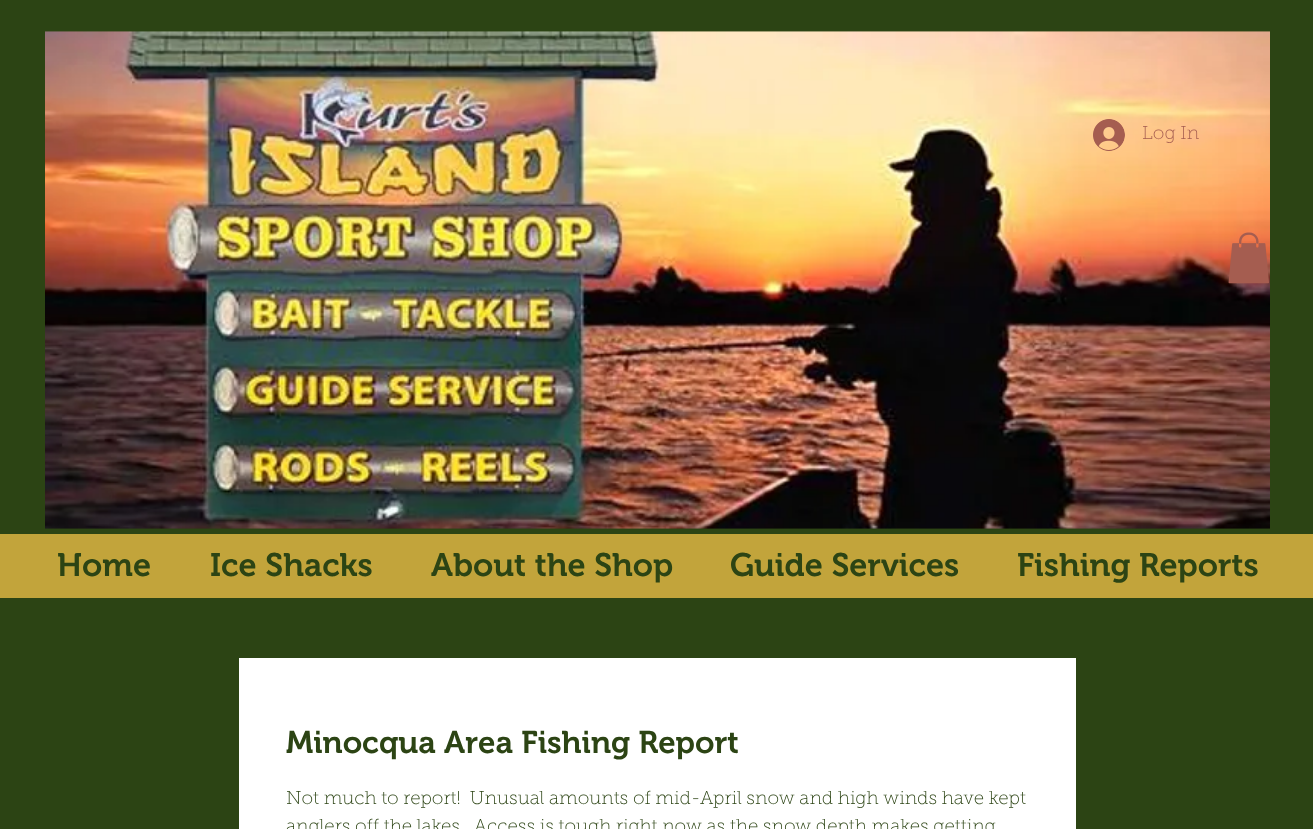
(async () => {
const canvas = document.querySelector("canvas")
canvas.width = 1313
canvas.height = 829
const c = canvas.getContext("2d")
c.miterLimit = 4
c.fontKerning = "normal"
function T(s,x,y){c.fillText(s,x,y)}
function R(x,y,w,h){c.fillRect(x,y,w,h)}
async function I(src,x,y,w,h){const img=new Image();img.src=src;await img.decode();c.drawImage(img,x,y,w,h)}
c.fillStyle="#2c4414"
R(0,0,1313,829)
await I("1.png",45,31,1225,498)
await I("2.png",1093,119,32,32)
c.font="100 18.75px 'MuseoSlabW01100'"
c.fillStyle="#a55d50"
T("Log In",1142,139)
await I("3.png",1228,232,41,52)
c.fillStyle="#c2a43b"
R(0,534,1313,64)
c.font="600 32.5px 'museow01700'"
c.fillStyle="#2c4414"
T("Home",57,576)
T("Ice Shacks",210,576)
T("About the Shop",431,576)
T("Guide Services",730,576)
T("Fishing Reports",1017,576)
c.fillStyle="#fff"
R(239,658,837,171)
c.font="600 31.25px 'museow01700'"
c.fillStyle="#2c4414"
T("Minocqua Area Fishing Report",286,753)
c.font="100 18.75px 'MuseoSlabW01100'"
T("Not much to report!  Unusual amounts of mid-April snow and high winds have kept",286,804)
T("anglers off the lakes.  Access is tough right now as the snow depth makes getting",286,832)
})()
